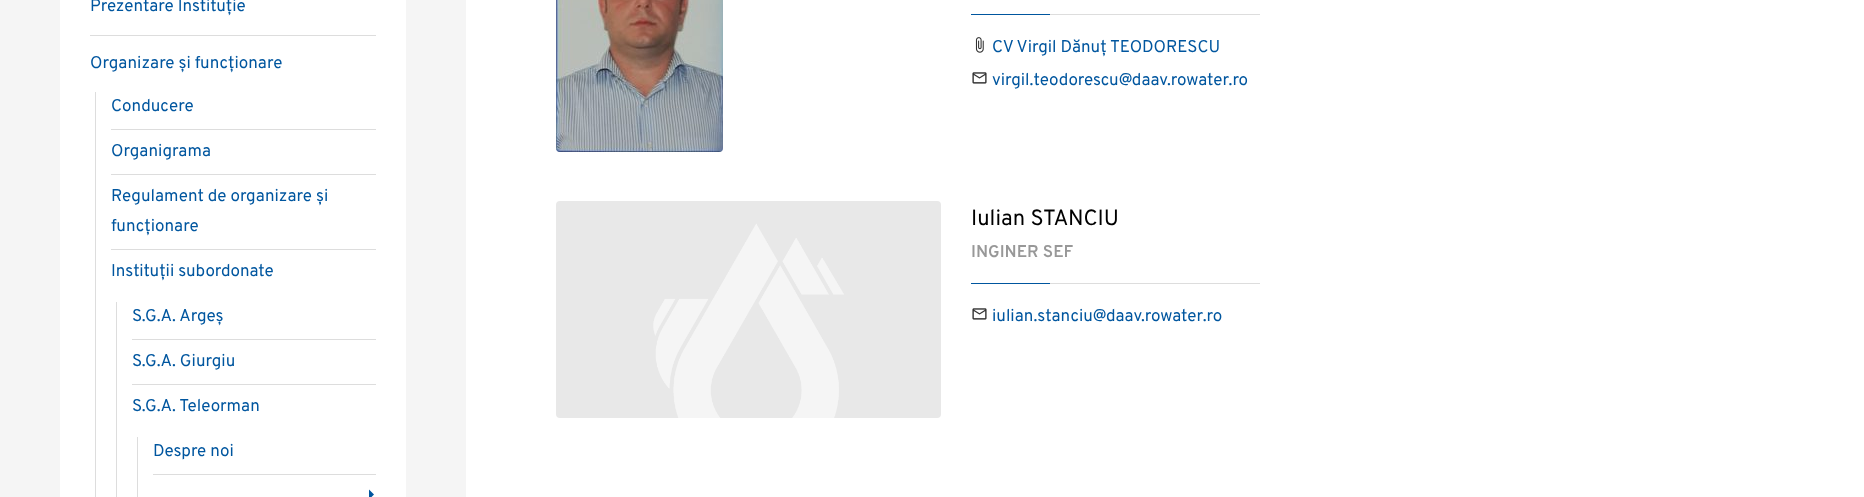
(async () => {
const canvas = document.querySelector("canvas")
canvas.width = 1864
canvas.height = 497
const c = canvas.getContext("2d")
c.miterLimit = 4
c.fontKerning = "normal"
function T(s,x,y){c.fillText(s,x,y)}
function R(x,y,w,h){c.fillRect(x,y,w,h)}
async function I(src,x,y,w,h){const img=new Image();img.src=src;await img.decode();c.drawImage(img,x,y,w,h)}
let path
c.fillStyle="#f5f5f5"
R(0,0,1864,497)
c.fillStyle="#fff"
R(60,0,346,497)
c.fillStyle="#ddd"
R(90,35,286,1)
c.font="17px Overpass"
c.fillStyle="#00569f"
T("Prezentare Instituție",90,11)
T("Organizare și funcționare",90,68)
c.fillStyle="#ddd"
R(95,92,1,405)
R(111,129,265,1)
c.fillStyle="#00569f"
T("Conducere",111,111)
c.fillStyle="#ddd"
R(111,174,265,1)
c.fillStyle="#00569f"
T("Organigrama",111,156)
c.fillStyle="#ddd"
R(111,249,265,1)
c.fillStyle="#00569f"
T("Regulament de organizare și",111,201)
T("funcționare",111,231)
T("Instituții subordonate",111,276)
c.fillStyle="#ddd"
R(116,302,1,195)
R(132,339,244,1)
c.fillStyle="#00569f"
T("S.G.A. Argeș",132,321)
c.fillStyle="#ddd"
R(132,384,244,1)
c.fillStyle="#00569f"
T("S.G.A. Giurgiu",132,366)
T("S.G.A. Teleorman",132,411)
c.fillStyle="#ddd"
R(137,437,1,60)
R(153,474,223,1)
c.fillStyle="#00569f"
T("Despre noi",153,456)
path = new Path2D("M369 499.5v-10l5 5z")
c.fill(path)
c.fillStyle="#fff"
R(466,0,1398,497)
await I("1.png",556,0,167,152)
c.fillStyle="#ddd"
R(1050,14,210,1)
c.fillStyle="#00569f"
R(971,14,79,1)
await I("2.png",975,37,9,16)
T("CV Virgil Dănuț TEODORESCU",992,52)
await I("3.png",972,72,15,12)
T("virgil.teodorescu@daav.rowater.ro",992,85)
await I("4.png",556,201,385,217)
c.font="22px Overpass"
c.fillStyle="#000"
T("Iulian STANCIU",971,225)
c.font="600 17px Overpass"
c.fillStyle="#989898"
T("INGINER SEF",971,257)
c.fillStyle="#ddd"
R(1050,283,210,1)
c.fillStyle="#00569f"
R(971,283,79,1)
await I("3.png",972,308,15,12)
c.font="17px Overpass"
T("iulian.stanciu@daav.rowater.ro",992,321)
})()
